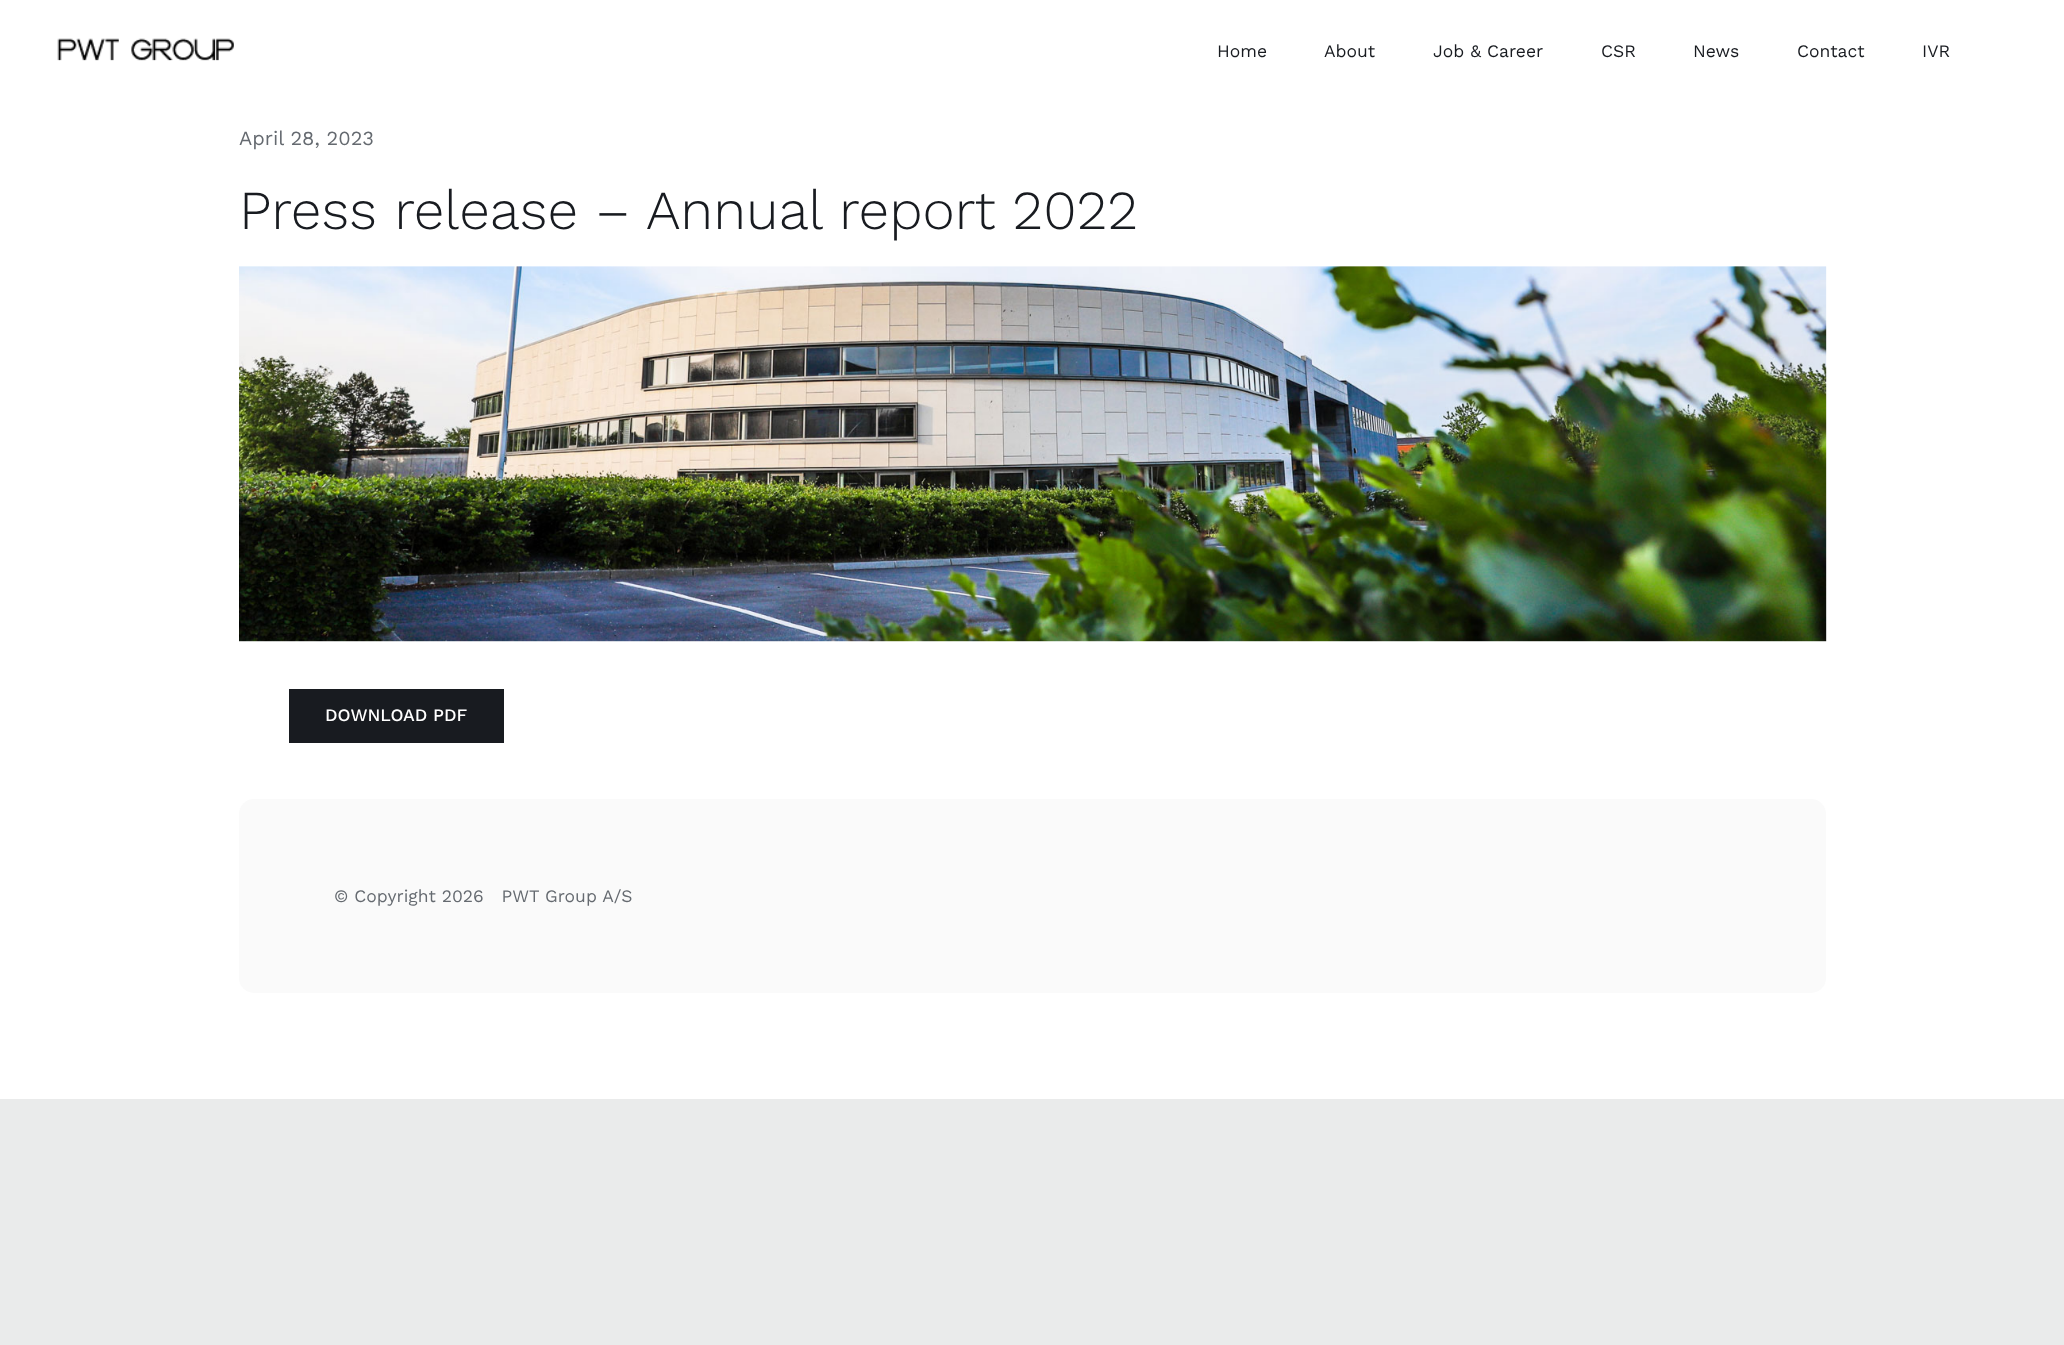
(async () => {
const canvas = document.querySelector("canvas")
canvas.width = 2064
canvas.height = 1345
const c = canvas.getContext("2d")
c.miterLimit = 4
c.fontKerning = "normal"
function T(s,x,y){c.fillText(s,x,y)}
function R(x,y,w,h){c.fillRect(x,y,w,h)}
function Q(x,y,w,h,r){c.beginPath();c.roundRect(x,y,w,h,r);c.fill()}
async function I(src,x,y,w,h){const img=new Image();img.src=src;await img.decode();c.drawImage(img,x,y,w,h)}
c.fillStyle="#eaebeb"
R(0,0,2064,1345)
c.fillStyle="#fff"
R(0,0,2064,1099)
await I("1.png",57,38,177,23)
c.font="17.5px Work Sans"
c.fillStyle="#181b20"
T("Home",1217,57)
T("About",1324,57)
T("Job & Career",1433,57)
T("CSR",1601,57)
T("News",1693,57)
T("Contact",1797,57)
T("IVR",1922,57)
c.font="20px Work Sans"
c.fillStyle="#656a70"
T("April 28, 2023",239,145)
c.font="300 55px Work Sans"
c.fillStyle="#181b20"
T("Press release – Annual report 2022",239,229)
await I("2.png",239,266,1588,376)
R(289,689,215,54)
c.font="500 17.5px Work Sans"
c.fillStyle="#fff"
T("DOWNLOAD PDF",325,721)
c.fillStyle="#fafafa"
Q(239,799,1587,194,15)
c.font="17.5px Work Sans"
c.fillStyle="#656a70"
T("© Copyright 2026   PWT Group A/S",334,902)
})()
